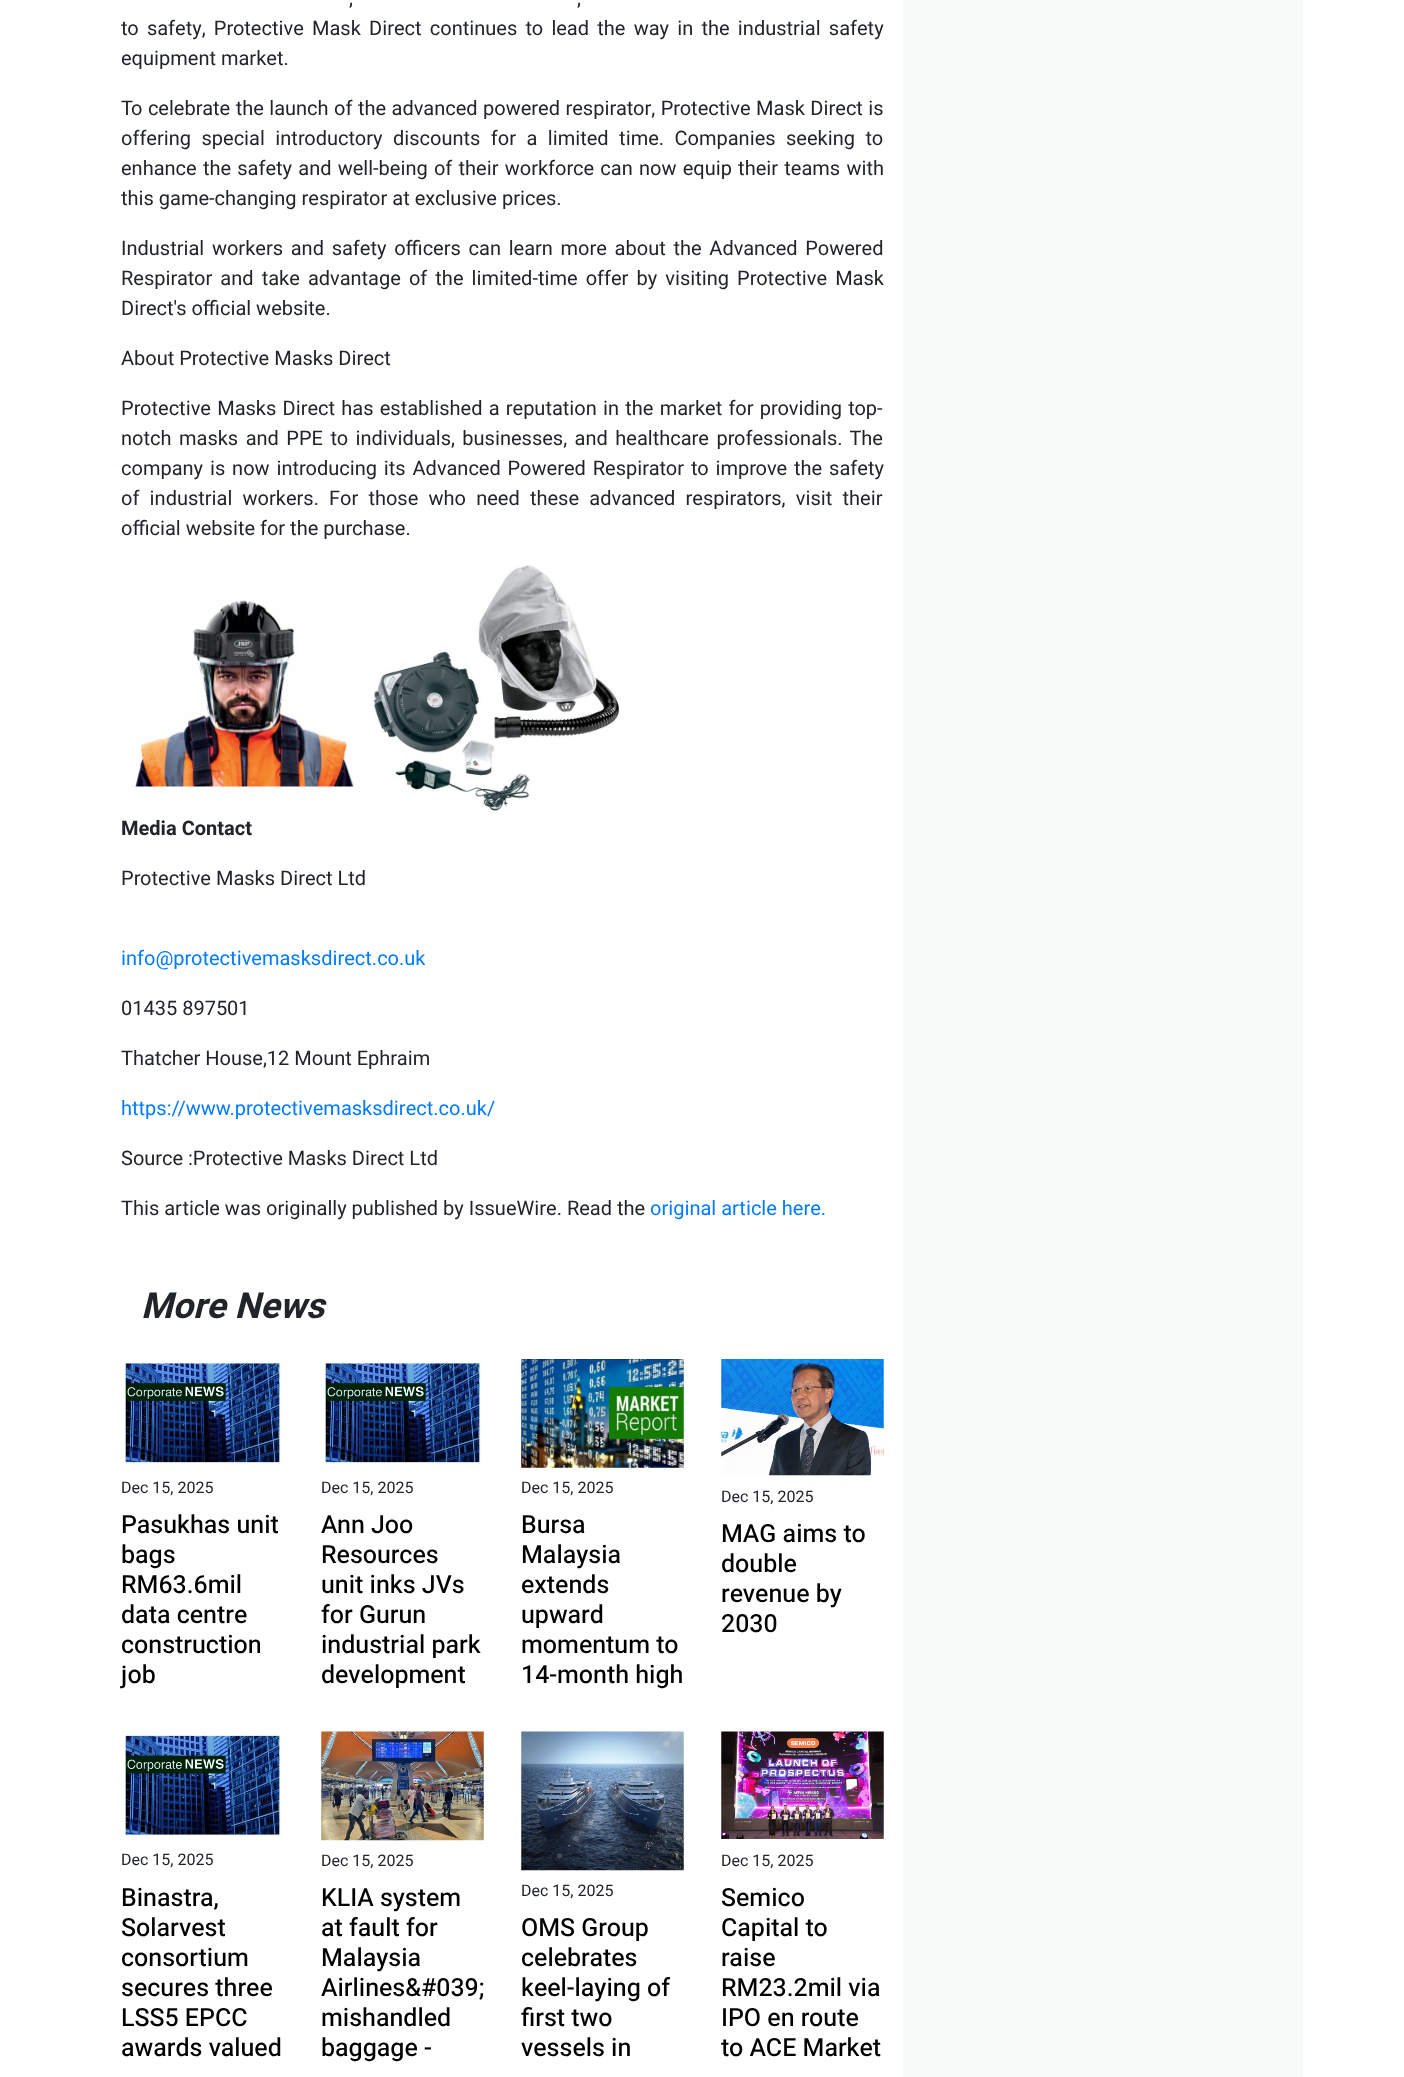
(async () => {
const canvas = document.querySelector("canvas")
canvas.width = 1404
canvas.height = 2077
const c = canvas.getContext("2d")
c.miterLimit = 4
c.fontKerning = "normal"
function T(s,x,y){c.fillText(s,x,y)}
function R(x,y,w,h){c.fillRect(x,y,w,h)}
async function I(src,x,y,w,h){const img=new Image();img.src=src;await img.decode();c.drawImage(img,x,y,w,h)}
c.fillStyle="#fff"
R(0,0,1404,2077)
c.wordSpacing="3px"
c.font="20px Heebo"
c.fillStyle="#212529"
T(",",349,5)
T(",",577,5)
c.wordSpacing="3.25px"
T("to safety, Protective Mask Direct continues to lead the way in the industrial safety",121,35)
c.wordSpacing="0px"
T("equipment market.",121,65)
c.wordSpacing="0.5px"
T("To celebrate the launch of the advanced powered respirator, Protective Mask Direct is",121,115)
c.wordSpacing="5.5px"
T("offering special introductory discounts for a limited time. Companies seeking to",121,145)
c.wordSpacing="1.25px"
T("enhance the safety and well-being of their workforce can now equip their teams with",121,175)
c.wordSpacing="0px"
T("this game-changing respirator at exclusive prices.",121,205)
c.wordSpacing="2.75px"
T("Industrial workers and safety officers can learn more about the Advanced Powered",121,255)
c.wordSpacing="3.1px"
T("Respirator and take advantage of the limited-time offer by visiting Protective Mask",121,285)
c.wordSpacing="0px"
T("Direct's official website.",121,315)
T("About Protective Masks Direct",121,365)
c.wordSpacing="1.25px"
T("Protective Masks Direct has established a reputation in the market for providing top-",121,415)
c.wordSpacing="2.5px"
T("notch masks and PPE to individuals, businesses, and healthcare professionals. The",121,445)
c.wordSpacing="1.9px"
T("company is now introducing its Advanced Powered Respirator to improve the safety",121,475)
c.wordSpacing="5.25px"
T("of industrial workers. For those who need these advanced respirators, visit their",121,505)
c.wordSpacing="0px"
T("official website for the purchase.",121,535)
await I("1.png",135,600,219,187)
await I("2.png",373,565,247,246)
c.font="bold 20px Heebo"
T("Media Contact",121,835)
c.font="20px Heebo"
T("Protective Masks Direct Ltd",121,885)
c.fillStyle="#007bff"
T("info@protectivemasksdirect.co.uk",121,965)
c.fillStyle="#212529"
T("01435 897501",121,1015)
T("Thatcher House,12 Mount Ephraim",121,1065)
c.fillStyle="#007bff"
T("https://www.protectivemasksdirect.co.uk/",121,1115)
c.fillStyle="#212529"
T("Source :Protective Masks Direct Ltd",121,1165)
T("This article was originally published by IssueWire. Read the",121,1215)
c.fillStyle="#007bff"
T("original article here.",650,1215)
c.font="italic bold 36px Heebo"
c.fillStyle="#212529"
T("More News",141,1318)
await I("3.png",124,1361,157,103)
c.font="16px Heebo"
T("Dec 15, 2025",121,1493)
c.font="500 25px Heebo"
c.fillStyle="#000"
T("Pasukhas unit",121,1533)
T("bags",121,1563)
T("RM63.6mil",121,1593)
T("data centre",121,1623)
T("construction",121,1653)
T("job",121,1683)
await I("3.png",324,1361,157,103)
c.font="16px Heebo"
c.fillStyle="#212529"
T("Dec 15, 2025",321,1493)
c.font="500 25px Heebo"
c.fillStyle="#000"
T("Ann Joo",321,1533)
T("Resources",321,1563)
T("unit inks JVs",321,1593)
T("for Gurun",321,1623)
T("industrial park",321,1653)
T("development",321,1683)
await I("4.png",521,1359,163,109)
c.font="16px Heebo"
c.fillStyle="#212529"
T("Dec 15, 2025",521,1493)
c.font="500 25px Heebo"
c.fillStyle="#000"
T("Bursa",521,1533)
T("Malaysia",521,1563)
T("extends",521,1593)
T("upward",521,1623)
T("momentum to",521,1653)
T("14-month high",521,1683)
await I("5.png",721,1359,163,117)
c.font="16px Heebo"
c.fillStyle="#212529"
T("Dec 15, 2025",721,1502)
c.font="500 25px Heebo"
c.fillStyle="#000"
T("MAG aims to",721,1542)
T("double",721,1572)
T("revenue by",721,1602)
T("2030",721,1632)
await I("6.png",124,1734,157,102)
c.font="16px Heebo"
c.fillStyle="#212529"
T("Dec 15, 2025",121,1865)
c.font="500 25px Heebo"
c.fillStyle="#000"
T("Binastra,",121,1906)
T("Solarvest",121,1936)
T("consortium",121,1966)
T("secures three",121,1996)
T("LSS5 EPCC",121,2026)
T("awards valued",121,2056)
await I("7.png",321,1731,163,110)
c.font="16px Heebo"
c.fillStyle="#212529"
T("Dec 15, 2025",321,1866)
c.font="500 25px Heebo"
c.fillStyle="#000"
T("KLIA system",321,1906)
T("at fault for",321,1936)
T("Malaysia",321,1966)
T("Airlines&#039;",321,1996)
T("mishandled",321,2026)
T("baggage -",321,2056)
await I("8.png",521,1731,163,140)
c.font="16px Heebo"
c.fillStyle="#212529"
T("Dec 15, 2025",521,1896)
c.font="500 25px Heebo"
c.fillStyle="#000"
T("OMS Group",521,1936)
T("celebrates",521,1966)
T("keel-laying of",521,1996)
T("first two",521,2026)
T("vessels in",521,2056)
await I("9.png",721,1731,163,108)
c.font="16px Heebo"
c.fillStyle="#212529"
T("Dec 15, 2025",721,1866)
c.font="500 25px Heebo"
c.fillStyle="#000"
T("Semico",721,1906)
T("Capital to",721,1936)
T("raise",721,1966)
T("RM23.2mil via",721,1996)
T("IPO en route",721,2026)
T("to ACE Market",721,2056)
c.fillStyle="#f8f9f9"
R(903,0,400,2077)
})()
